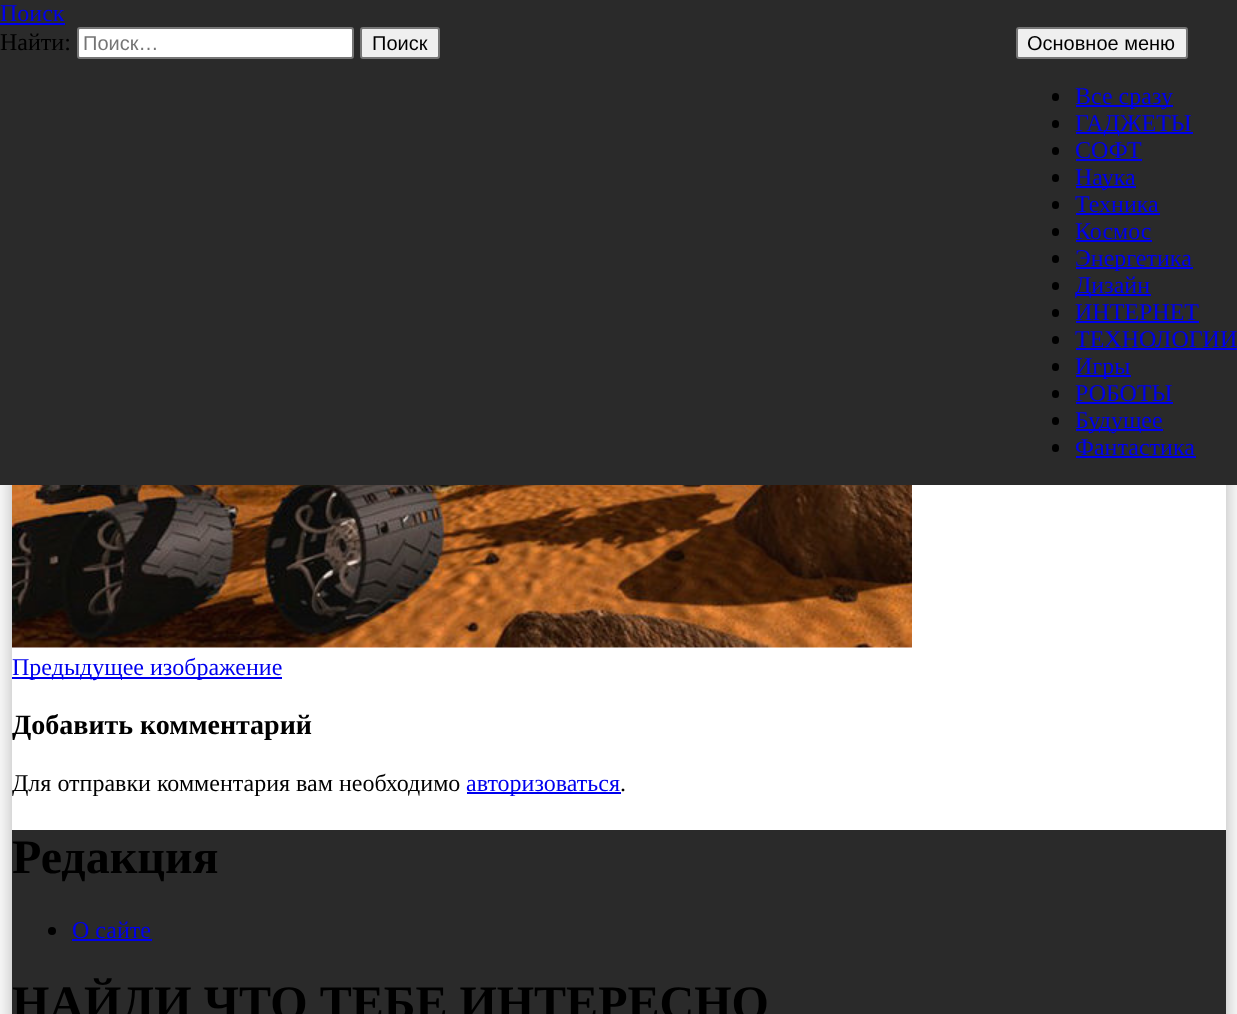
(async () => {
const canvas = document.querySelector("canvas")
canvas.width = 1237
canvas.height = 1014
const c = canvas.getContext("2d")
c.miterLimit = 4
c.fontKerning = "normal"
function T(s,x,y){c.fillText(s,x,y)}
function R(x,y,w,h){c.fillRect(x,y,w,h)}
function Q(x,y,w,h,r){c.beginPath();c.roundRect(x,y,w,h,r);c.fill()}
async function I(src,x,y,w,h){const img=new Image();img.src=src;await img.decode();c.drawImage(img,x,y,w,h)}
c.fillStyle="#fff"
R(0,0,1237,1014)
c.fillStyle="#b1b1b1"
c.filter="blur(11px)"
c.beginPath()
c.rect(12,30,1214,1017)
c.fill()
c.filter="none"
c.fillStyle="#fff"
R(12,485,1214,345)
c.fillStyle="#2a2a2a"
R(0,0,1237,485)
c.font="24px Liberation Serif"
c.fillStyle="#00e"
T("Поиск",0,21)
R(0,23,65,2)
c.fillStyle="#efefef"
c.beginPath()
c.roundRect(1017,28,170,30,2)
c.fill()
c.strokeStyle="#767676"
c.lineWidth=2
c.stroke()
c.font="20px Liberation Sans"
c.fillStyle="#000"
T("Основное меню",1027,50)
Q(1052,93,7,8,3.5)
c.fillStyle="#00e"
R(1076,105,97,2)
c.font="24px Liberation Serif"
T("Все сразу",1075,104)
c.fillStyle="#000"
Q(1052,120,7,8,3.5)
c.fillStyle="#00e"
R(1076,132,117,2)
T("ГАДЖЕТЫ",1075,131)
c.fillStyle="#000"
Q(1052,147,7,8,3.5)
c.fillStyle="#00e"
T("СОФТ",1075,158)
R(1076,159,66,2)
c.fillStyle="#000"
Q(1052,174,7,8,3.5)
c.fillStyle="#00e"
R(1076,186,60,2)
T("Наука",1075,185)
c.fillStyle="#000"
Q(1052,201,7,8,3.5)
c.fillStyle="#00e"
T("Техника",1075,212)
R(1076,213,84,2)
c.fillStyle="#000"
Q(1052,228,7,8,3.5)
c.fillStyle="#00e"
T("Космос",1075,239)
R(1076,240,76,2)
c.fillStyle="#000"
Q(1052,255,7,8,3.5)
c.fillStyle="#00e"
R(1076,267,117,2)
T("Энергетика",1075,266)
c.fillStyle="#000"
Q(1052,282,7,8,3.5)
c.fillStyle="#00e"
R(1076,294,75,2)
T("Дизайн",1075,293)
c.fillStyle="#000"
Q(1052,309,7,8,3.5)
c.fillStyle="#00e"
T("ИНТЕРНЕТ",1075,320)
R(1076,321,123,2)
c.fillStyle="#000"
Q(1052,336,7,8,3.5)
c.fillStyle="#00e"
T("ТЕХНОЛОГИИ",1075,347)
R(1076,348,161,2)
c.fillStyle="#000"
Q(1052,363,7,8,3.5)
c.fillStyle="#00e"
R(1076,375,55,2)
T("Игры",1075,374)
c.fillStyle="#000"
Q(1052,390,7,8,3.5)
c.fillStyle="#00e"
T("РОБОТЫ",1075,401)
R(1076,402,97,2)
c.fillStyle="#000"
Q(1052,417,7,8,3.5)
c.fillStyle="#00e"
R(1076,429,87,2)
T("Будущее",1075,428)
c.fillStyle="#000"
Q(1052,444,7,8,3.5)
c.fillStyle="#00e"
T("Фантастика",1075,455)
R(1076,456,120,2)
c.fillStyle="#000"
T("Найти:",0,50)
c.fillStyle="#fff"
c.beginPath()
c.roundRect(78,28,275,30,2)
c.fill()
c.stroke()
c.font="20px Liberation Sans"
c.fillStyle="#757575"
T("Поиск…",83,50)
c.fillStyle="#efefef"
c.beginPath()
c.roundRect(361,28,78,30,2)
c.fill()
c.stroke()
c.fillStyle="#000"
T("Поиск",372,50)
await I("1.png",12,485,900,163)
c.fillStyle="#00e"
R(12,677,270,2)
c.font="24px Liberation Serif"
T("Предыдущее изображение",12,675)
c.font="bold 28px Liberation Serif"
c.fillStyle="#000"
T("Добавить комментарий",12,734)
c.font="24px Liberation Serif"
T("Для отправки комментария вам необходимо",12,791)
c.fillStyle="#00e"
R(467,792,154,2)
T("авторизоваться",466,791)
c.fillStyle="#000"
T(".",620,791)
c.fillStyle="#2a2a2a"
R(12,830,1214,184)
c.font="bold 48px Liberation Serif"
c.fillStyle="#000"
T("Редакция",12,873)
c.beginPath()
c.arc(52,931,4,0,7)
c.fill()
c.font="24px Liberation Serif"
c.fillStyle="#00e"
T("О сайте",72,938)
R(72,939,80,2)
c.font="bold 48px Liberation Serif"
c.fillStyle="#000"
T("НАЙДИ ЧТО ТЕБЕ ИНТЕРЕСНО",12,1019)
})()
